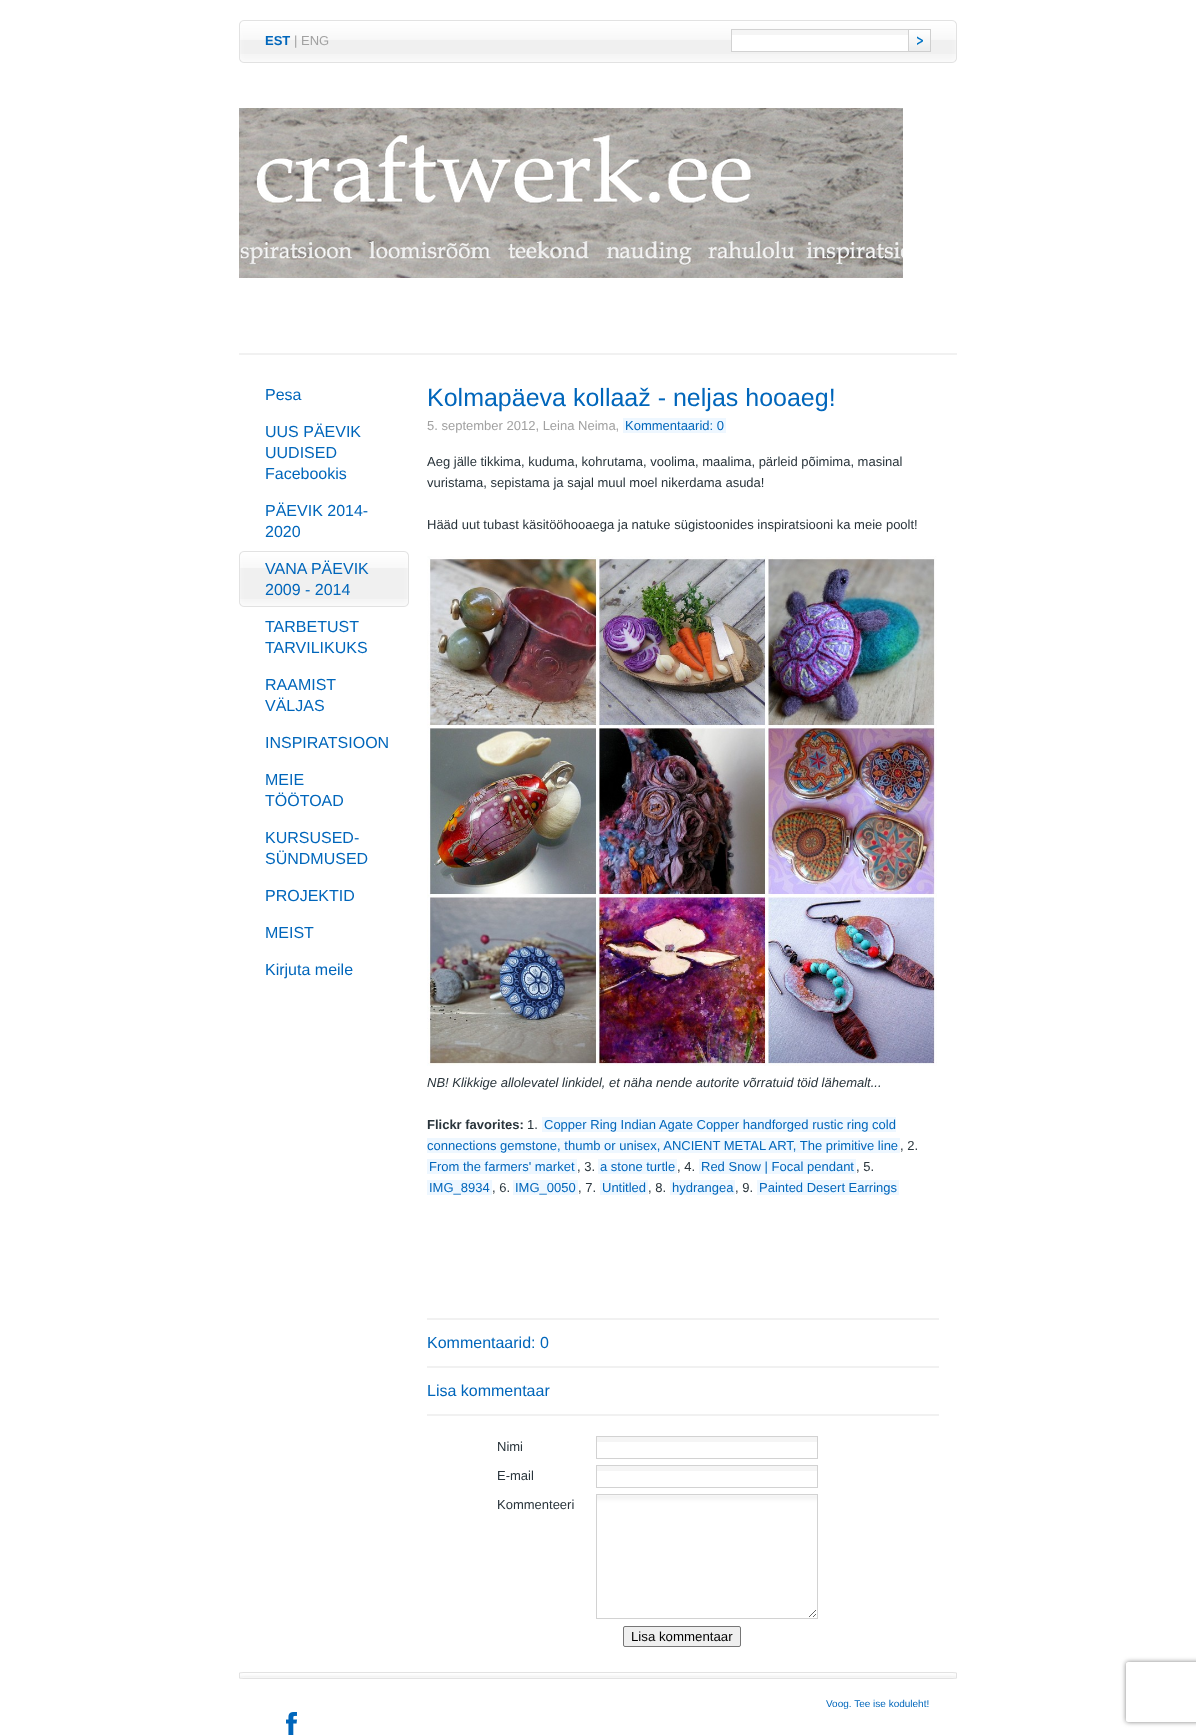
(async () => {
const canvas = document.querySelector("canvas")
canvas.width = 1196
canvas.height = 1736
const c = canvas.getContext("2d")
c.miterLimit = 4
c.fontKerning = "normal"
function T(s,x,y){c.fillText(s,x,y)}
function R(x,y,w,h){c.fillRect(x,y,w,h)}
async function I(src,x,y,w,h){const img=new Image();img.src=src;await img.decode();c.drawImage(img,x,y,w,h)}
let path
c.fillStyle="#fff"
R(0,0,1196,1736)
await I("1.png",239,40,718,14)
await I("2.png",239,20,718,20)
await I("3.png",239,54,718,9)
c.font="bold 13px Liberation Sans"
c.fillStyle="#06b"
T("EST",265,45)
c.font="13px Liberation Sans"
c.fillStyle="#a1a1a1"
T("| ENG",294,45)
c.fillStyle="#fff"
R(732,35,176,16)
c.fillStyle="#f5f5f5"
R(731,30,178,5)
c.strokeStyle="#d2d2d2"
c.strokeRect(731.5,29.5,177,22)
await I("4.png",909,29,22,23)
c.fillStyle="#f1f1f1"
R(239,353,718,2)
await I("5.png",239,108,664,170)
await I("6.png",239,1672,718,7)
c.font="16px Liberation Sans"
c.fillStyle="#06b"
T("Pesa",265,400)
T("UUS PÄEVIK",265,437)
T("UUDISED",265,458)
T("Facebookis",265,479)
T("PÄEVIK 2014-",265,516)
T("2020",265,537)
await I("7.png",239,568,170,31)
await I("8.png",239,551,170,17)
await I("9.png",239,599,170,8)
T("VANA PÄEVIK",265,574)
T("2009 - 2014",265,595)
T("TARBETUST",265,632)
T("TARVILIKUKS",265,653)
T("RAAMIST",265,690)
T("VÄLJAS",265,711)
T("INSPIRATSIOON",265,748)
T("MEIE",265,785)
T("TÖÖTOAD",265,806)
T("KURSUSED-",265,843)
T("SÜNDMUSED",265,864)
T("PROJEKTID",265,901)
T("MEIST",265,938)
T("Kirjuta meile",265,975)
c.font="25px Liberation Sans"
T("Kolmapäeva kollaaž - neljas hooaeg!",427,406)
c.font="13px Liberation Sans"
c.fillStyle="#a1a1a1"
T("5. september 2012, Leina Neima,",427,430)
c.fillStyle="#eef7ff"
R(623,418,103,15)
c.fillStyle="#06b"
T("Kommentaarid: 0",625,430)
c.fillStyle="#29343b"
T("Aeg jälle tikkima, kuduma, kohrutama, voolima, maalima, pärleid põimima, masinal",427,466)
T("vuristama, sepistama ja sajal muul moel nikerdama asuda!",427,487)
T("Hääd uut tubast käsitööhooaega ja natuke sügistoonides inspiratsiooni ka meie poolt!",427,529)
await I("10.png",427,556,510,510)
c.font="italic 13px Liberation Sans"
T("NB! Klikkige allolevatel linkidel, et näha nende autorite võrratuid töid lähemalt...",427,1087)
c.font="bold 13px Liberation Sans"
T("Flickr favorites:",427,1129)
c.font="13px Liberation Sans"
T("1.",527,1129)
c.fillStyle="#eef7ff"
R(542,1117,354,15)
c.fillStyle="#06b"
T("Copper Ring Indian Agate Copper handforged rustic ring cold",544,1129)
c.fillStyle="#eef7ff"
R(427,1138,473,15)
c.fillStyle="#06b"
T("connections gemstone, thumb or unisex, ANCIENT METAL ART, The primitive line",427,1150)
c.fillStyle="#29343b"
T(", 2.",900,1150)
c.fillStyle="#eef7ff"
R(427,1159,150,15)
c.fillStyle="#06b"
T("From the farmers' market",429,1171)
c.fillStyle="#29343b"
T(", 3.",577,1171)
c.fillStyle="#eef7ff"
R(598,1159,79,15)
c.fillStyle="#06b"
T("a stone turtle",600,1171)
c.fillStyle="#29343b"
T(", 4.",677,1171)
c.fillStyle="#eef7ff"
R(699,1159,157,15)
c.fillStyle="#06b"
T("Red Snow | Focal pendant",701,1171)
c.fillStyle="#29343b"
T(", 5.",856,1171)
c.fillStyle="#eef7ff"
R(427,1180,65,15)
c.fillStyle="#06b"
T("IMG_8934",429,1192)
c.fillStyle="#29343b"
T(", 6.",492,1192)
c.fillStyle="#eef7ff"
R(513,1180,65,15)
c.fillStyle="#06b"
T("IMG_0050",515,1192)
c.fillStyle="#29343b"
T(", 7.",578,1192)
c.fillStyle="#eef7ff"
R(600,1180,48,15)
c.fillStyle="#06b"
T("Untitled",602,1192)
c.fillStyle="#29343b"
T(", 8.",648,1192)
c.fillStyle="#eef7ff"
R(670,1180,65,15)
c.fillStyle="#06b"
T("hydrangea",672,1192)
c.fillStyle="#29343b"
T(", 9.",735,1192)
c.fillStyle="#eef7ff"
R(757,1180,142,15)
c.fillStyle="#06b"
T("Painted Desert Earrings",759,1192)
c.fillStyle="#f1f1f1"
R(427,1318,512,2)
c.font="16px Liberation Sans"
c.fillStyle="#06b"
T("Kommentaarid: 0",427,1348)
c.fillStyle="#f1f1f1"
R(427,1366,512,2)
c.fillStyle="#06b"
T("Lisa kommentaar",427,1396)
c.fillStyle="#f1f1f1"
R(427,1414,512,2)
c.font="13px Liberation Sans"
c.fillStyle="#29343b"
T("Nimi",497,1451)
c.fillStyle="#f5f5f5"
R(596,1437,222,5)
c.strokeRect(596.5,1436.5,221,22)
c.fillStyle="#29343b"
T("E-mail",497,1480)
c.fillStyle="#f5f5f5"
R(596,1466,222,5)
c.strokeRect(596.5,1465.5,221,22)
c.fillStyle="#29343b"
T("Kommenteeri",497,1509)
await I("11.png",597,1495,220,122)
c.strokeRect(596.5,1494.5,221,124)
c.fillStyle="#efefef"
c.beginPath()
c.roundRect(623.5,1626.5,117,20,1.5)
c.fill()
c.strokeStyle="#767676"
c.stroke()
c.font="13.25px Liberation Sans"
c.fillStyle="#000"
T("Lisa kommentaar",631,1641)
c.save()
path = new Path2D("M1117 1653h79v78h-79zm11 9h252c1 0 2 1 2 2v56c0 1-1 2-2 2h-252c-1 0-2-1-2-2v-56c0-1 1-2 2-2z")
c.clip(path,"evenodd")
c.fillStyle="#808080"
c.filter="blur(2.5px)"
c.beginPath()
c.roundRect(1126,1662,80,60,2)
c.fill()
c.filter="none"
c.restore()
c.font="10px Liberation Sans"
c.fillStyle="#06b"
T("Voog. Tee ise koduleht!",826,1707)
await I("12.png",286,1712,11,23)
})()
